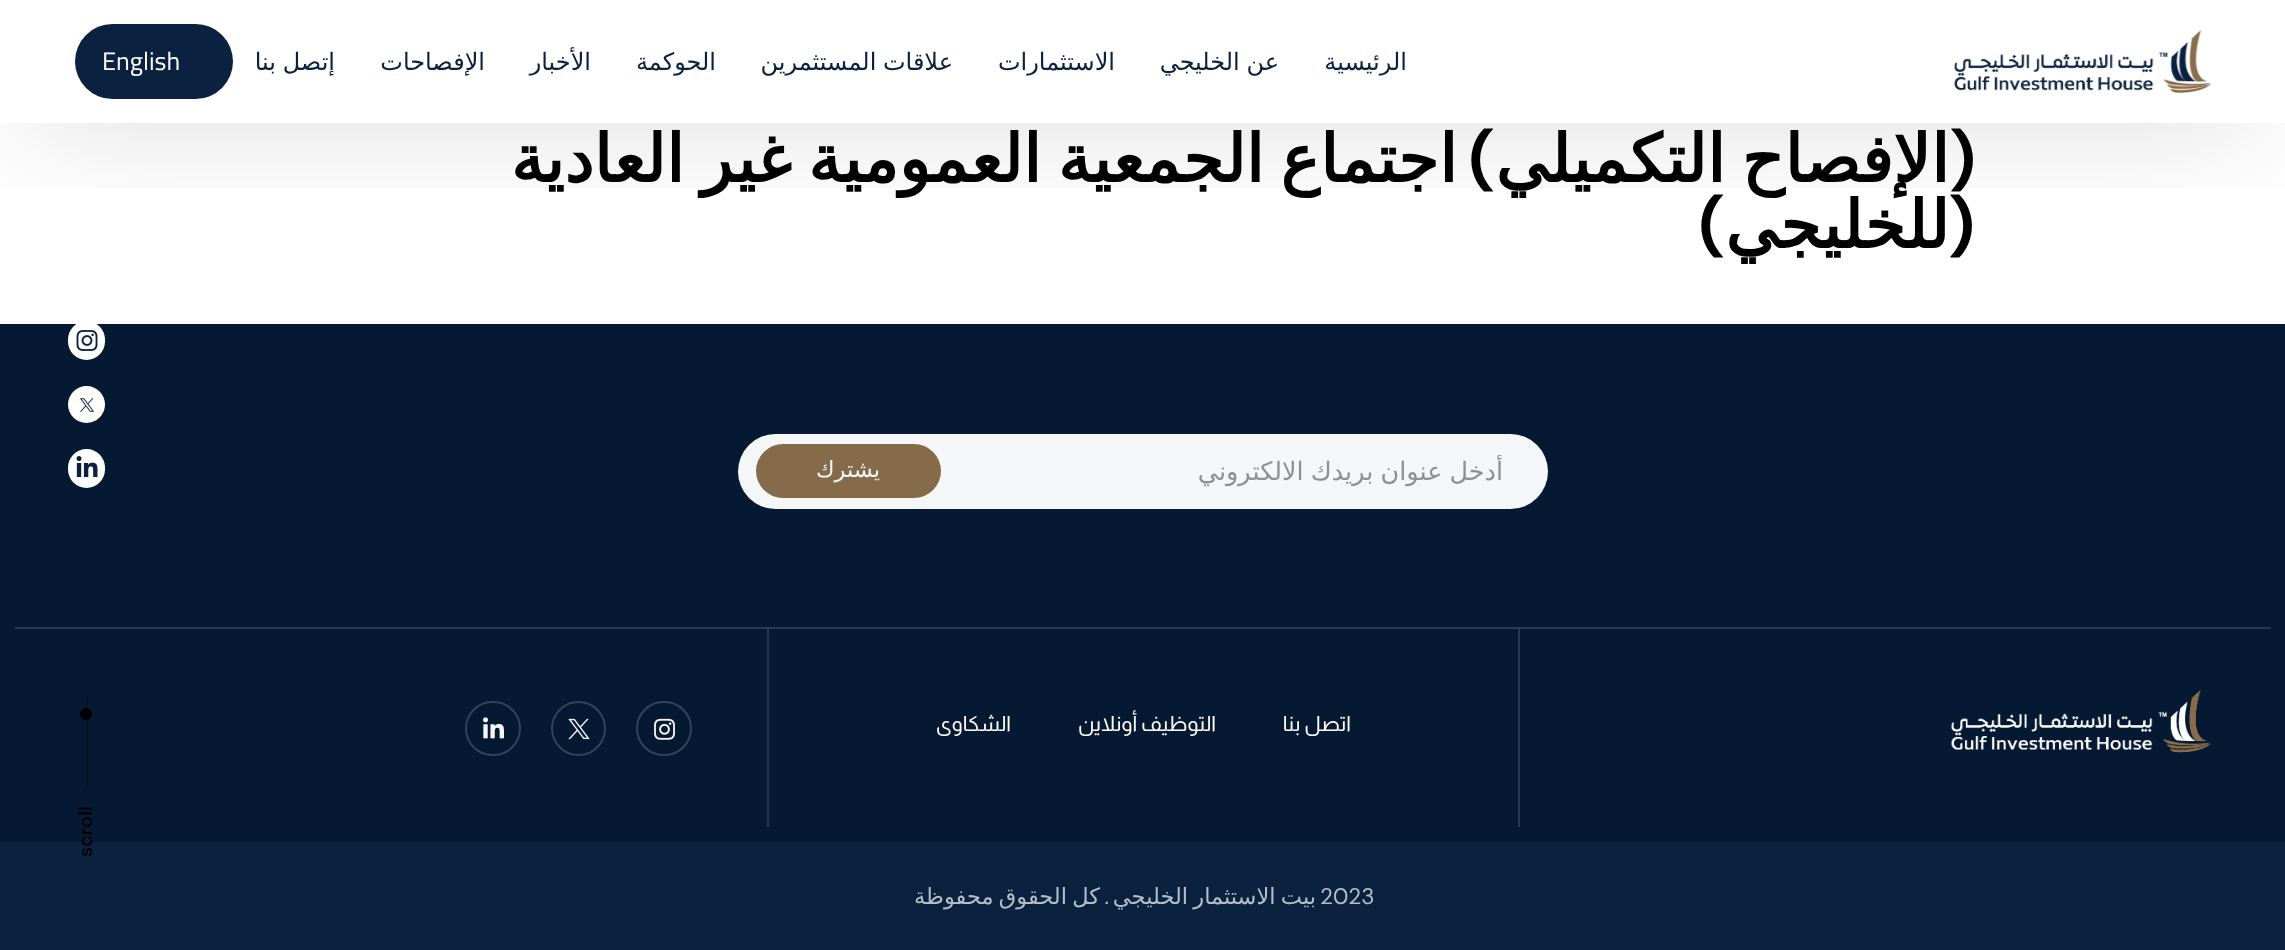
(async () => {
const canvas = document.querySelector("canvas")
canvas.width = 2285
canvas.height = 950
const c = canvas.getContext("2d")
c.miterLimit = 4
c.fontKerning = "normal"
function T(s,x,y){c.fillText(s,x,y)}
function R(x,y,w,h){c.fillRect(x,y,w,h)}
function Q(x,y,w,h,r){c.beginPath();c.roundRect(x,y,w,h,r);c.fill()}
async function I(src,x,y,w,h){const img=new Image();img.src=src;await img.decode();c.drawImage(img,x,y,w,h)}
c.fillStyle="#fff"
R(0,0,2285,950)
c.save()
c.beginPath()
c.rect(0,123,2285,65)
c.clip()
c.fillStyle="#00000040"
c.filter="blur(67.5px)"
c.beginPath()
c.rect(27,35,2226,63)
c.fill()
c.filter="none"
c.restore()
await I("1.png",1954,30,257,63)
c.direction="rtl"
c.font="24px DejaVu Sans"
c.fillStyle="#0a2240"
T("الرئيسية",1407,70)
c.wordSpacing="-1px"
T("عن الخليجي",1279,70)
c.wordSpacing="0px"
T("الاستثمارات",1115,70)
c.wordSpacing="-1px"
T("علاقات المستثمرين",953,70)
c.wordSpacing="0px"
T("الحوكمة",716,70)
T("الأخبار",591,70)
T("الإفصاحات",485,70)
c.wordSpacing="-1px"
T("إتصل بنا",335,70)
Q(75,24,158,75,37.5)
c.wordSpacing="0px"
c.direction="ltr"
c.font="25.5px Cairo"
c.fillStyle="#fcfcfc"
T("English",102,70)
c.fillStyle="#051933"
R(0,324,2285,518)
c.fillStyle="#fff"
Q(68,321,37,39,18.5)
await I("2.png",76,330,22,21)
c.beginPath()
c.arc(86.5,404.5,18.5,0,7)
c.fill()
await I("3.png",80,398,15,14)
Q(68,449,37,39,18.5)
await I("4.png",76,456,22,21)
c.fillStyle="#041224"
R(86,696,2,90)
c.fillStyle="#000"
c.beginPath()
c.arc(86,714,6,0,7)
c.fill()
c.fillStyle="#0a2240"
R(0,842,2285,108)
c.letterSpacing="0.25px"
c.font="500 19.5px DM Sans"
c.fillStyle="#000"
c.save()
c.translate(92,857)
c.rotate(-90 * Math.PI / 180)
c.fillText("scroll",0,0)
c.restore()
c.letterSpacing="0px"
c.direction="rtl"
c.font="bold 66px DM Sans"
T("(",1976,182)
c.wordSpacing="-4.5px"
c.font="bold 66px DejaVu Sans"
T("الإفصاح التكميلي",1949,182)
c.wordSpacing="0px"
c.font="bold 66px DM Sans"
T(")",1495,182)
c.wordSpacing="-4.5px"
c.font="bold 66px DejaVu Sans"
T("اجتماع الجمعية العمومية غير العادية",1457,182)
c.wordSpacing="0px"
c.font="bold 66px DM Sans"
T("(",1975,248)
c.font="bold 66px DejaVu Sans"
T("للخليجي",1949,248)
c.font="bold 66px DM Sans"
T(")",1725,248)
c.fillStyle="#f5f6f7"
Q(738,434,810,75,37.5)
c.save()
c.beginPath()
c.rect(783,455,720,33)
c.clip()
c.wordSpacing="-1px"
c.font="25.5px DejaVu Sans"
c.fillStyle="#8f9091"
T("أدخل عنوان بريدك الالكتروني",1503,480)
c.restore()
c.fillStyle="#856b4a"
Q(756,444,185,54,27)
c.font="22.5px DejaVu Sans"
c.fillStyle="#f5f6f7"
T("يشترك",880,477)
c.fillStyle="#283950"
R(15,627,2256,2)
await I("5.png",1951,689,260,64)
c.fillStyle="#28394f"
R(1518,629,2,198)
R(767,629,2,198)
c.font="21px Almarai"
c.fillStyle="#fcfcfc"
T("اتصل بنا",1351,731)
T("التوظيف أونلاين",1216,731)
T("الشكاوى",1011,731)
c.beginPath()
c.roundRect(637,702,54,53,26.5)
c.strokeStyle="#334358"
c.lineWidth=2
c.stroke()
await I("6.png",654,718,21,22)
c.beginPath()
c.arc(578.5,728.5,26.5,0,7)
c.stroke()
await I("7.png",568,718,22,22)
c.beginPath()
c.roundRect(466,702,54,53,26.5)
c.stroke()
await I("8.png",483,717,21,22)
c.letterSpacing="0.15px"
c.direction="ltr"
c.font="22.5px DM Sans"
c.fillStyle="#b6bdc6"
T("2023",1320,904)
c.wordSpacing="-2px"
c.direction="rtl"
c.font="22.5px DejaVu Sans"
T("بيت الاستثمار الخليجي",1316,904)
c.wordSpacing="0px"
c.font="22.5px DM Sans"
T(".",1109,904)
c.wordSpacing="-2px"
c.font="22.5px DejaVu Sans"
T("كل الحقوق محفوظة",1100,904)
})()
